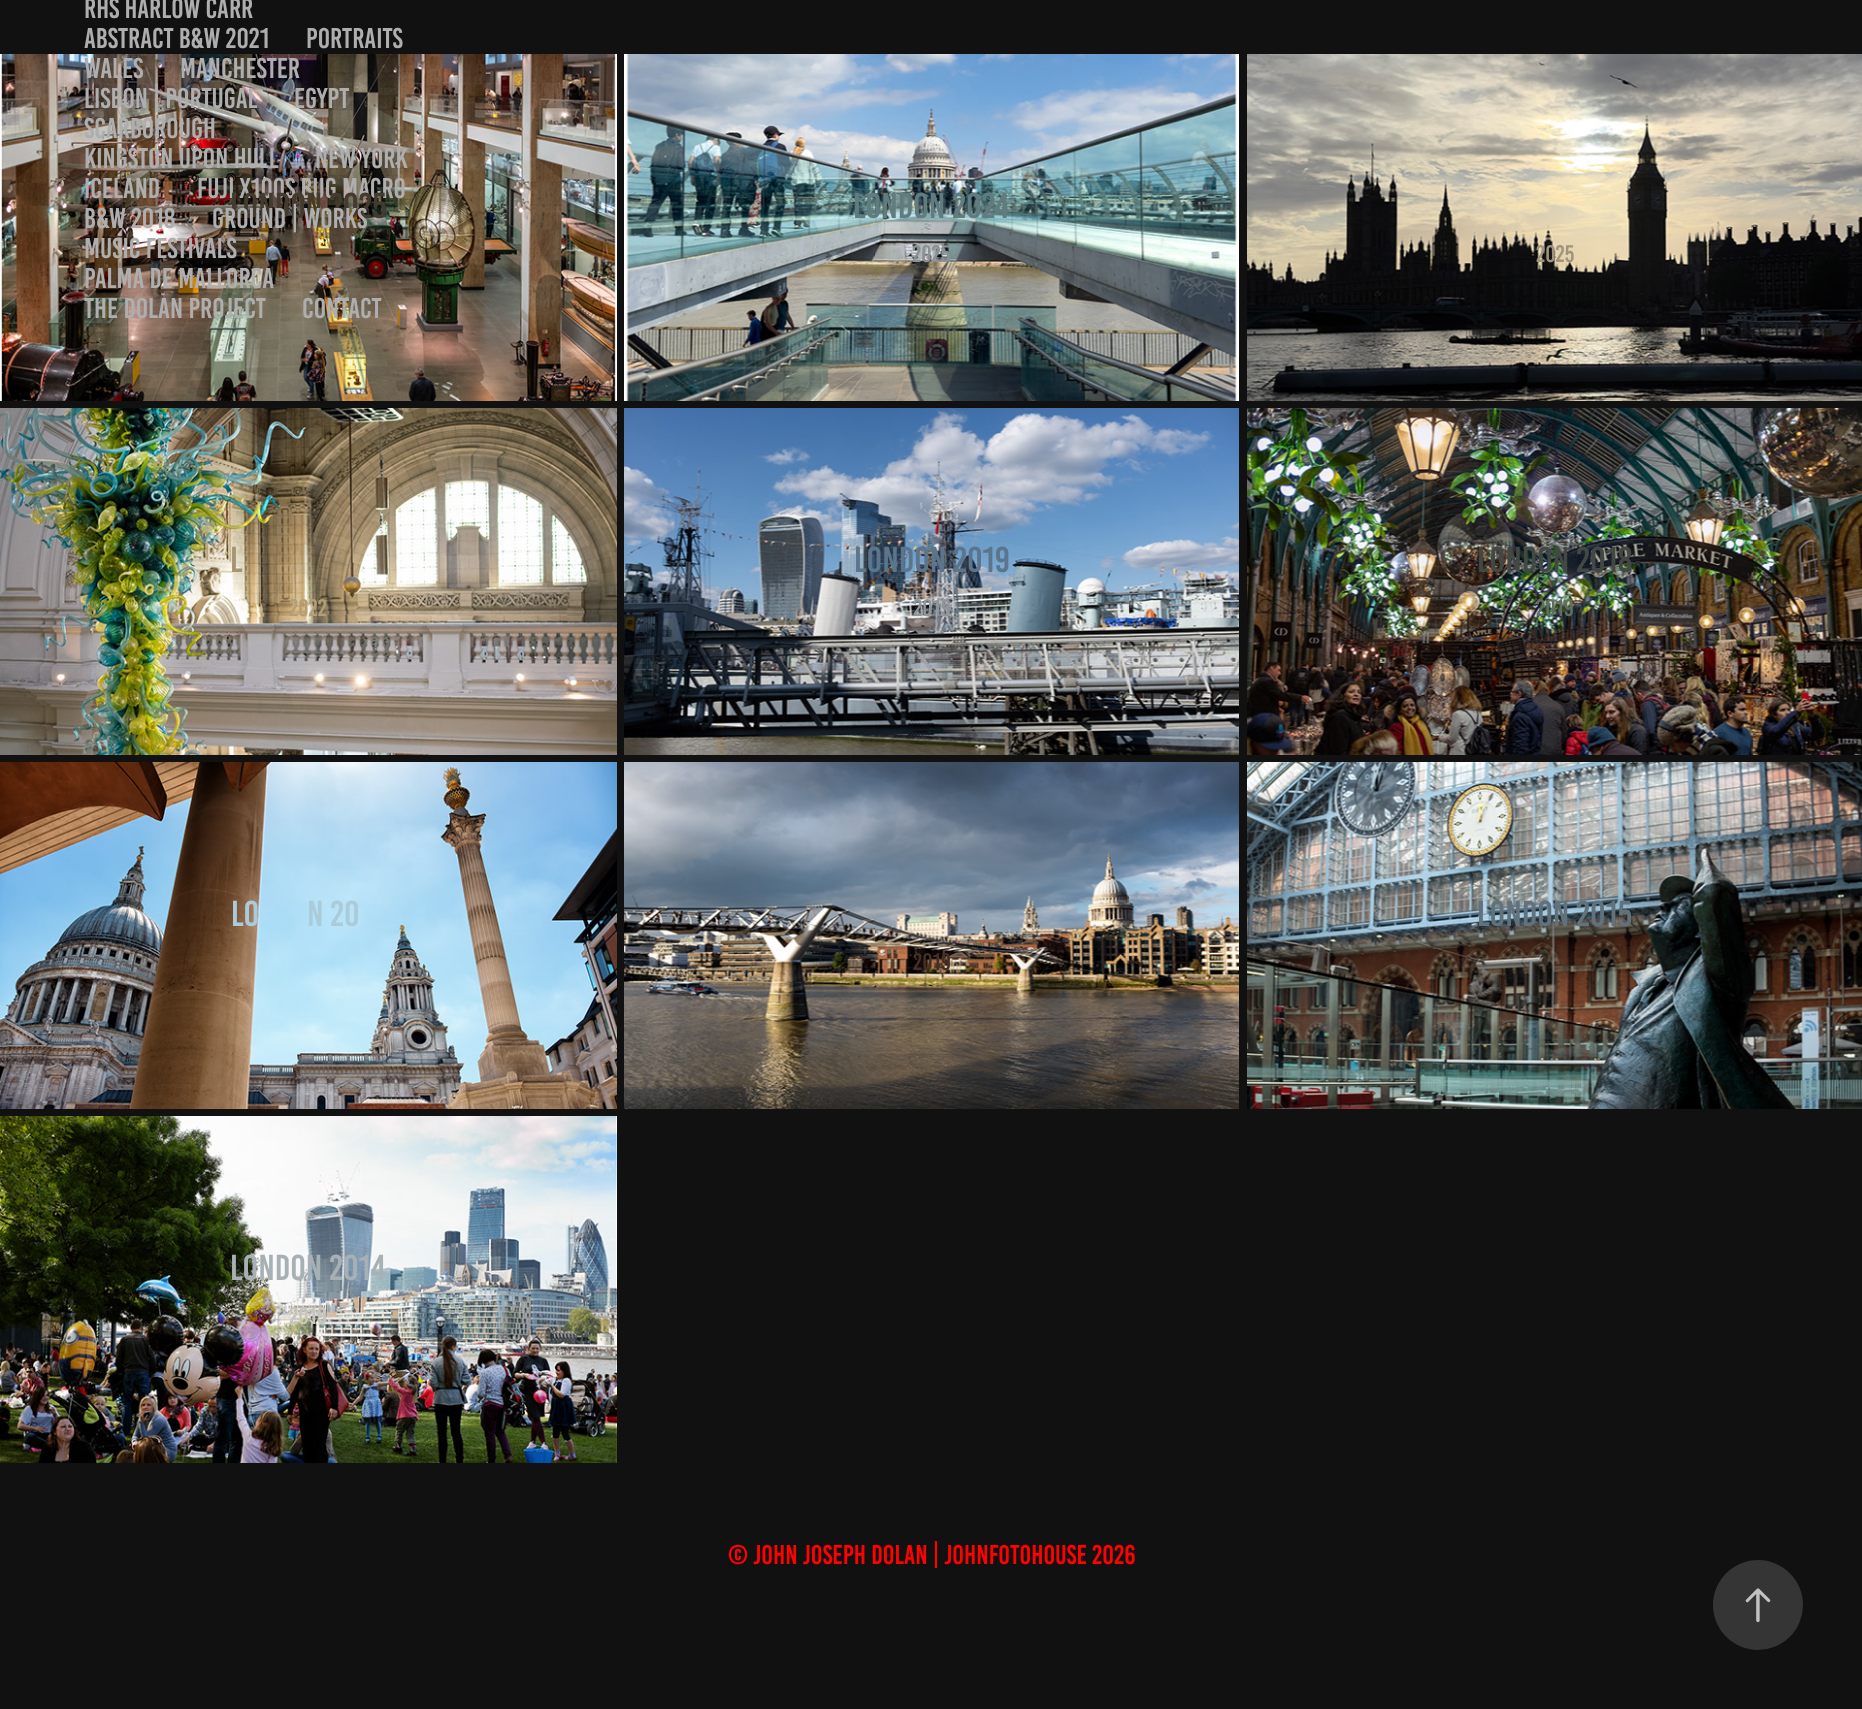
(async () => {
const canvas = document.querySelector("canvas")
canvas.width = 1862
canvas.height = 1709
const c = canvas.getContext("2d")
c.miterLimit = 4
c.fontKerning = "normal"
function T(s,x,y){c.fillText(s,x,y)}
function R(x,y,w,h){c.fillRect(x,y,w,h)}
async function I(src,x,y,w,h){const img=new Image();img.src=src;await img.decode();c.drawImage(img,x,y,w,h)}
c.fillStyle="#111"
R(0,0,1862,1709)
c.font="28.5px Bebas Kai"
c.fillStyle="#aeaeae"
T("RHS HARLOW CARR",84,18)
T("ABSTRACT B&W 2021",84,48)
T("PORTRAITS",306,48)
await I("1.png",0,54,617,347)
T("WALES",84,78)
T("MANCHESTER",180,78)
T("LISBON | PORTUGAL",84,108)
T("EGYPT",294,108)
T("SCARBOROUGH",84,138)
T("KINGSTON UPON HULL",84,168)
T("NEW YORK",315,168)
T("ICELAND",84,198)
T("FUJI X100S BUG MACRO",197,198)
T("B&W 2018",84,228)
c.font="36px Bebas Kai"
c.fillStyle="#443b2f"
T("LONDON 2025",230,218)
c.font="28.5px Bebas Kai"
c.fillStyle="#aeaeae"
T("GROUND | WORKS",212,228)
T("MUSIC FESTIVALS",84,258)
T("PALMA DE MALLORCA",84,288)
T("THE DOLAN PROJECT",84,318)
T("CONTACT",302,318)
await I("2.png",624,54,615,347)
c.font="36px Bebas Kai"
c.fillStyle="#607c7f"
T("LONDON 2024",853,218)
c.font="24px Bebas Kai"
c.fillStyle="#8b9192"
T("2025",912,262)
await I("3.png",1247,54,615,347)
c.fillStyle="#a0947c"
T("2025",1536,262)
await I("4.png",0,408,617,347)
c.font="36px Bebas Kai"
c.fillStyle="#a69475"
T("L",230,572)
c.font="24px Bebas Kai"
c.fillStyle="#b29e79"
T("2022",289,616)
await I("5.png",624,408,615,347)
c.font="36px Bebas Kai"
c.fillStyle="#5b758d"
T("LONDON 2019",854,572)
c.font="24px Bebas Kai"
c.fillStyle="#909599"
T("2019",913,616)
await I("6.png",1247,408,615,347)
c.font="36px Bebas Kai"
c.fillStyle="#424844"
T("LONDON 2018",1477,572)
c.font="24px Bebas Kai"
c.fillStyle="#5f6e5e"
T("2019",1536,616)
await I("7.png",0,762,617,347)
c.font="36px Bebas Kai"
c.fillStyle="#accbda"
T("LO",231,926)
T("N 20",307,926)
await I("8.png",1247,762,615,347)
c.fillStyle="#61727c"
T("LONDON 2015",1477,926)
await I("9.png",624,762,615,347)
c.font="24px Bebas Kai"
c.fillStyle="#423025"
T("2019",913,970)
await I("10.png",0,1116,617,347)
c.font="36px Bebas Kai"
c.fillStyle="#a7b1b5"
T("LONDON 2014",230,1280)
c.font="24px Bebas Kai"
c.fillStyle="#c6c5bb"
T("2019",289,1324)
c.font="27px Bebas Kai"
c.fillStyle="#ff0101"
T("© John Joseph Dolan | johnfotohouse 2026",728,1564)
c.fillStyle="#353535"
c.beginPath()
c.arc(1758,1605,45,0,7)
c.fill()
await I("11.png",1745,1588,26,35)
})()
